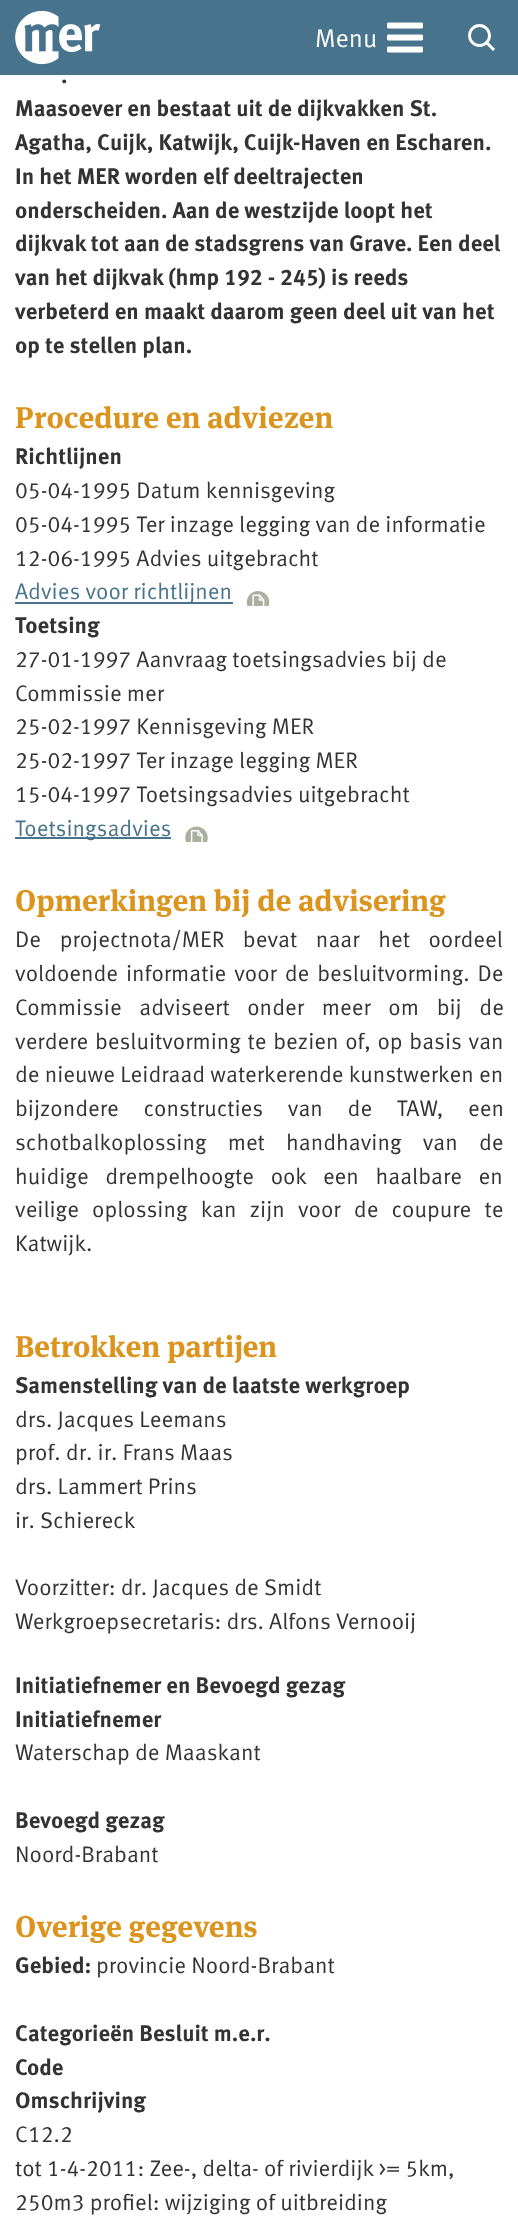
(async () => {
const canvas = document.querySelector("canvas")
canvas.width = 518
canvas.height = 2226
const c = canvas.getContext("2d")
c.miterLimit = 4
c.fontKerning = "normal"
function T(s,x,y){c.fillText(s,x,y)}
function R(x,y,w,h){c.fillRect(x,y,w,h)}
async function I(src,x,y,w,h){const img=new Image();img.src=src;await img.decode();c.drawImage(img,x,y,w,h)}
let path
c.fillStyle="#fff"
R(0,0,518,2226)
c.fillStyle="#47738c"
R(0,0,518,75)
await I("1.png",15,11,86,54)
await I("2.png",387,22,36,31)
c.font="25.5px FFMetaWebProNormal"
c.fillStyle="#fff"
T("Menu",315,47)
path = new Path2D("M493 49l-6.5-6.5")
c.strokeStyle="#fff"
c.lineWidth=2.9
c.lineCap="square"
c.stroke(path)
c.beginPath()
c.arc(479.5,35.5,10,0,7)
c.stroke()
c.font="22.5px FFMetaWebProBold"
c.fillStyle="#333"
T(".",61,83)
T("Maasoever en bestaat uit de dijkvakken St.",15,116)
T("Agatha, Cuijk, Katwijk, Cuijk-Haven en Escharen.",15,150)
T("In het MER worden elf deeltrajecten",15,184)
T("onderscheiden. Aan de westzijde loopt het",15,218)
T("dijkvak tot aan de stadsgrens van Grave. Een deel",15,251)
T("van het dijkvak (hmp 192 - 245) is reeds",15,285)
T("verbeterd en maakt daarom geen deel uit van het",15,319)
T("op te stellen plan.",15,353)
c.font="30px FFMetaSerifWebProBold"
c.fillStyle="#db941e"
T("Procedure en adviezen",15,428)
c.font="22.5px FFMetaWebProBold"
c.fillStyle="#333"
T("Richtlijnen",15,464)
c.font="22.5px FFMetaWebProNormal"
T("05-04-1995 Datum kennisgeving",15,498)
T("05-04-1995 Ter inzage legging van de informatie",15,532)
T("12-06-1995 Advies uitgebracht",15,566)
c.fillStyle="#47738c"
R(15,602,218,2)
T("Advies voor richtlijnen",15,599)
await I("3.png",246,591,24,15)
c.font="22.5px FFMetaWebProBold"
c.fillStyle="#333"
T("Toetsing",15,633)
c.font="22.5px FFMetaWebProNormal"
T("27-01-1997 Aanvraag toetsingsadvies bij de",15,667)
T("Commissie mer",15,701)
T("25-02-1997 Kennisgeving MER",15,734)
T("25-02-1997 Ter inzage legging MER",15,768)
T("15-04-1997 Toetsingsadvies uitgebracht",15,802)
c.fillStyle="#47738c"
R(15,837,156,2)
T("Toetsingsadvies",15,836)
await I("4.png",185,826,23,16)
c.font="30px FFMetaSerifWebProBold"
c.fillStyle="#db941e"
T("Opmerkingen bij de advisering",15,911)
c.wordSpacing="13.5px"
c.font="22.5px FFMetaWebProNormal"
c.fillStyle="#333"
T("De projectnota/MER bevat naar het oordeel",15,947)
c.wordSpacing="2.75px"
T("voldoende informatie voor de besluitvorming. De",15,981)
c.wordSpacing="12.5px"
T("Commissie adviseert onder meer om bij de",15,1015)
c.wordSpacing="1.5px"
T("verdere besluitvorming te bezien of, op basis van",15,1049)
c.wordSpacing="0px"
T("de nieuwe Leidraad waterkerende kunstwerken en",15,1082)
c.wordSpacing="19.5px"
T("bijzondere constructies van de TAW, een",15,1116)
c.wordSpacing="16px"
T("schotbalkoplossing met handhaving van de",15,1150)
c.wordSpacing="11.5px"
T("huidige drempelhoogte ook een haalbare en",15,1184)
c.wordSpacing="8px"
T("veilige oplossing kan zijn voor de coupure te",15,1217)
c.wordSpacing="0px"
T("Katwijk.",15,1251)
c.font="30px FFMetaSerifWebProBold"
c.fillStyle="#db941e"
T("Betrokken partijen",15,1357)
c.font="22.5px FFMetaWebProBold"
c.fillStyle="#333"
T("Samenstelling van de laatste werkgroep",15,1393)
c.font="22.5px FFMetaWebProNormal"
T("drs. Jacques Leemans",15,1427)
T("prof. dr. ir. Frans Maas",15,1460)
T("drs. Lammert Prins",15,1494)
T("ir. Schiereck",15,1528)
T("Voorzitter: dr. Jacques de Smidt",15,1595)
T("Werkgroepsecretaris: drs. Alfons Vernooij",15,1629)
c.font="22.5px FFMetaWebProBold"
T("Initiatiefnemer en Bevoegd gezag",15,1693)
T("Initiatiefnemer",15,1727)
c.font="22.5px FFMetaWebProNormal"
T("Waterschap de Maaskant",15,1760)
c.font="22.5px FFMetaWebProBold"
T("Bevoegd gezag",15,1828)
c.font="22.5px FFMetaWebProNormal"
T("Noord-Brabant",15,1862)
c.font="30px FFMetaSerifWebProBold"
c.fillStyle="#db941e"
T("Overige gegevens",15,1937)
c.font="22.5px FFMetaWebProBold"
c.fillStyle="#333"
T("Gebied:",15,1973)
c.font="22.5px FFMetaWebProNormal"
T("provincie Noord-Brabant",96,1973)
c.font="22.5px FFMetaWebProBold"
T("Categorieën Besluit m.e.r.",15,2041)
T("Code",15,2075)
T("Omschrijving",15,2108)
c.font="22.5px FFMetaWebProNormal"
T("C12.2",15,2142)
T("tot 1-4-2011: Zee-, delta- of rivierdijk >= 5km,",15,2176)
T("250m3 profiel: wijziging of uitbreiding",15,2210)
})()
